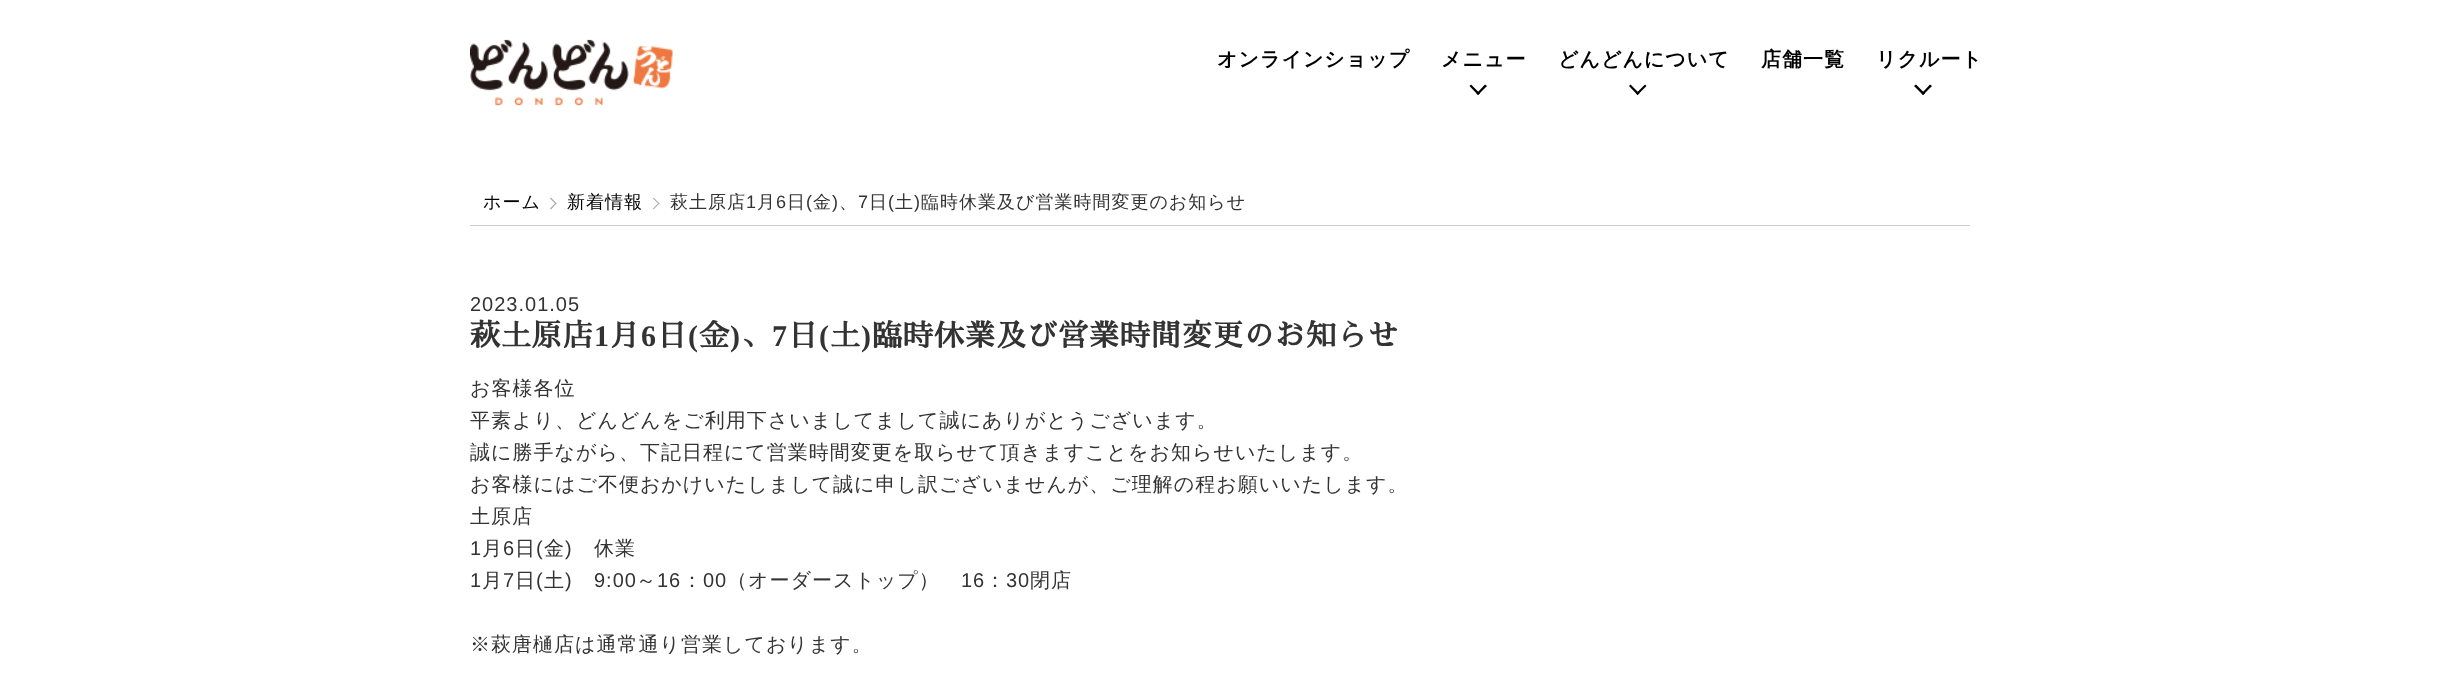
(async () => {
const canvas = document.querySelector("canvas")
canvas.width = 2439
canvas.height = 695
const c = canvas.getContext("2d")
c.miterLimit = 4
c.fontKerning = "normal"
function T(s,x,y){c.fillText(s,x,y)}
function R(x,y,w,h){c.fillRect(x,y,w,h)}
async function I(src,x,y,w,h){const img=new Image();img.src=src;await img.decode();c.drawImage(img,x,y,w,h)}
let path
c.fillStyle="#fff"
R(0,0,2439,695)
await I("1.png",470,39,203,67)
c.letterSpacing="1px"
c.font="bold 20px WenQuanYi Zen Hei"
c.fillStyle="#000"
T("オンラインショップ",1217,66)
T("メニュー",1441,66)
path = new Path2D("M1485 84.5l2 1.5l-9 9l-1.5-1.5z")
c.fill(path)
path = new Path2D("M1471 84.5l9 9l-2 1.5l-8.5-9z")
c.fill(path)
T("どんどんについて",1558,66)
path = new Path2D("M1645 84.5l1.5 1.5l-9 9l-1.5-1.5z")
c.fill(path)
path = new Path2D("M1630.5 84.5l9 9l-2 1.5l-8.5-9z")
c.fill(path)
T("店舗一覧",1761,66)
T("リクルート",1876,66)
path = new Path2D("M1930 84.5l2 1.5l-9 9l-1.5-1.5z")
c.fill(path)
path = new Path2D("M1916 84.5l9 9l-2 1.5l-9-9z")
c.fill(path)
c.fillStyle="#ccc"
R(470,225,1500,1)
c.font="500 18px WenQuanYi Zen Hei"
c.fillStyle="#000"
T("ホーム",483,208)
c.fillStyle="#aaa"
path = new Path2D("M550 198.5l1-1l5.5 6l-.5 1z")
c.fill(path)
path = new Path2D("M550 208.5l6-6l.5 1l-5.5 6z")
c.fill(path)
c.fillStyle="#000"
T("新着情報",567,208)
c.fillStyle="#aaa"
path = new Path2D("M653 198.5l.5-1l6 6l-.5 1z")
c.fill(path)
path = new Path2D("M653 208.5l6-6l.5 1l-6 6z")
c.fill(path)
c.fillStyle="#333"
T("萩土原店",670,208)
c.font="18px Liberation Sans"
T("1",746,208)
c.font="500 18px WenQuanYi Zen Hei"
T("月",757,208)
c.font="18px Liberation Sans"
T("6",776,208)
c.font="500 18px WenQuanYi Zen Hei"
T("日",787,208)
c.font="18px Liberation Sans"
T("(",806,208)
c.font="500 18px WenQuanYi Zen Hei"
T("金",813,208)
c.font="18px Liberation Sans"
T(")",832,208)
T("7",858,208)
c.font="500 18px WenQuanYi Zen Hei"
T("日",869,208)
c.font="18px Liberation Sans"
T("(",888,208)
c.font="500 18px WenQuanYi Zen Hei"
T("土",895,208)
c.font="18px Liberation Sans"
T(")",914,208)
c.font="500 18px WenQuanYi Zen Hei"
T("臨時休業及び営業時間変更のお知らせ",921,208)
T("、",839,208)
c.font="20px Liberation Sans"
T("2023.01.05",470,311)
c.font="bold 30px Sawarabi Mincho"
T("萩土原店",470,346)
c.font="bold 30px Liberation Serif"
T("1",594,346)
c.font="bold 30px Sawarabi Mincho"
T("月",610,346)
c.font="bold 30px Liberation Serif"
T("6",641,346)
c.font="bold 30px Sawarabi Mincho"
T("日",657,346)
c.font="bold 30px Liberation Serif"
T("(",688,346)
c.font="bold 30px Sawarabi Mincho"
T("金",699,346)
c.font="bold 30px Liberation Serif"
T(")",730,346)
c.font="bold 30px Sawarabi Mincho"
T("、",741,346)
c.font="bold 30px Liberation Serif"
T("7",772,346)
c.font="bold 30px Sawarabi Mincho"
T("日",788,346)
c.font="bold 30px Liberation Serif"
T("(",819,346)
c.font="bold 30px Sawarabi Mincho"
T("土",830,346)
c.font="bold 30px Liberation Serif"
T(")",861,346)
c.font="bold 30px Sawarabi Mincho"
T("臨時休業及び営業時間変更のお知らせ",872,346)
c.font="500 20px WenQuanYi Zen Hei"
T("お客様各位",470,395)
T("平素より、どんどんをご利用下さいましてまして誠にありがとうございます。",470,427)
T("誠に勝手ながら、下記日程にて営業時間変更を取らせて頂きますことをお知らせいたします。",470,459)
T("お客様にはご不便おかけいたしまして誠に申し訳ございませんが、ご理解の程お願いいたします。",470,491)
T("土原店",470,523)
c.font="20px Liberation Sans"
T("1",470,555)
c.font="500 20px WenQuanYi Zen Hei"
T("月",482,555)
c.font="20px Liberation Sans"
T("6",503,555)
c.font="500 20px WenQuanYi Zen Hei"
T("日",515,555)
c.font="20px Liberation Sans"
T("(",536,555)
c.font="500 20px WenQuanYi Zen Hei"
T("金",544,555)
c.font="20px Liberation Sans"
T(")",565,555)
c.font="500 20px WenQuanYi Zen Hei"
T("休業",594,555)
c.font="20px Liberation Sans"
T("1",470,587)
c.font="500 20px WenQuanYi Zen Hei"
T("月",482,587)
c.font="20px Liberation Sans"
T("7",503,587)
c.font="500 20px WenQuanYi Zen Hei"
T("日",515,587)
c.font="20px Liberation Sans"
T("(",536,587)
c.font="500 20px WenQuanYi Zen Hei"
T("土",544,587)
c.font="20px Liberation Sans"
T(")",565,587)
T("9:00",594,587)
c.font="500 20px WenQuanYi Zen Hei"
T("～",636,587)
c.font="20px Liberation Sans"
T("16",657,587)
c.font="500 20px WenQuanYi Zen Hei"
T("：",682,587)
c.font="20px Liberation Sans"
T("00",703,587)
c.font="500 20px WenQuanYi Zen Hei"
T("（オーダーストップ）",727,587)
c.font="20px Liberation Sans"
T("16",961,587)
c.font="500 20px WenQuanYi Zen Hei"
T("：",985,587)
c.font="20px Liberation Sans"
T("30",1006,587)
c.font="500 20px WenQuanYi Zen Hei"
T("閉店",1030,587)
T("※萩唐樋店は通常通り営業しております。",470,651)
})()
